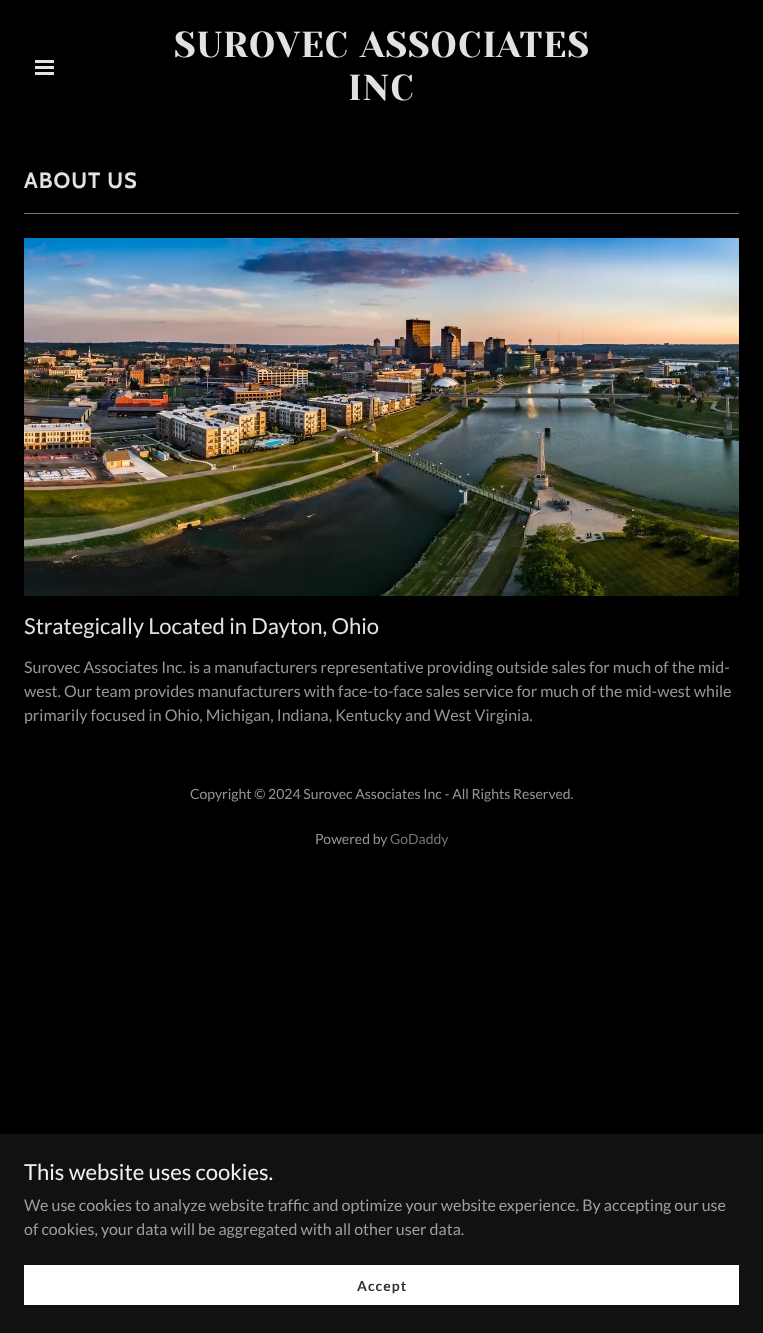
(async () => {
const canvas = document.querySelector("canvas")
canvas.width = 763
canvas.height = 1333
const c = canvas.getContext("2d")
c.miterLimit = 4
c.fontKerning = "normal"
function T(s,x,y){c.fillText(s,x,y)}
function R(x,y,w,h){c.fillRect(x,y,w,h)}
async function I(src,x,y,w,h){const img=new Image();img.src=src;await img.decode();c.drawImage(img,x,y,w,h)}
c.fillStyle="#000"
R(0,0,763,1333)
c.fillStyle="#e2e2e2"
R(35,60,19,3)
R(35,66,19,3)
R(35,72,19,3)
c.letterSpacing="1px"
c.font="36px Yeseva One"
T("SUROVEC ASSOCIATES",174,57)
T("INC",348,100)
c.font="bold 22px Cabin"
T("ABOUT US",24,188)
c.fillStyle="#777"
R(24,213,715,1)
await I("1.png",24,238,715,358)
c.letterSpacing="0px"
c.font="22px Lato"
c.fillStyle="#e2e2e2"
T("Strategically Located in Dayton, Ohio",24,634)
c.font="16px Lato"
c.fillStyle="#969696"
T("Surovec Associates Inc. is a manufacturers representative providing outside sales for much of the mid-",24,673)
T("west. Our team provides manufacturers with face-to-face sales service for much of the mid-west while",24,697)
T("primarily focused in Ohio, Michigan, Indiana, Kentucky and West Virginia.",24,721)
c.font="14px Lato"
T("Copyright © 2024 Surovec Associates Inc - All Rights Reserved.",190,799)
T("Powered by",315,844)
c.fillStyle="#757575"
T("GoDaddy",390,844)
c.fillStyle="#111"
R(0,1134,763,199)
c.font="22px Lato"
c.fillStyle="#f1f1f1"
T("This website uses cookies.",24,1180)
c.font="16px Lato"
c.fillStyle="#9e9e9e"
T("We use cookies to analyze website traffic and optimize your website experience. By accepting our use",24,1211)
T("of cookies, your data will be aggregated with all other user data.",24,1235)
c.fillStyle="#fff"
R(24,1265,715,40)
c.letterSpacing="1px"
c.font="bold 14px Lato"
c.fillStyle="#303030"
T("Accept",357,1291)
})()
